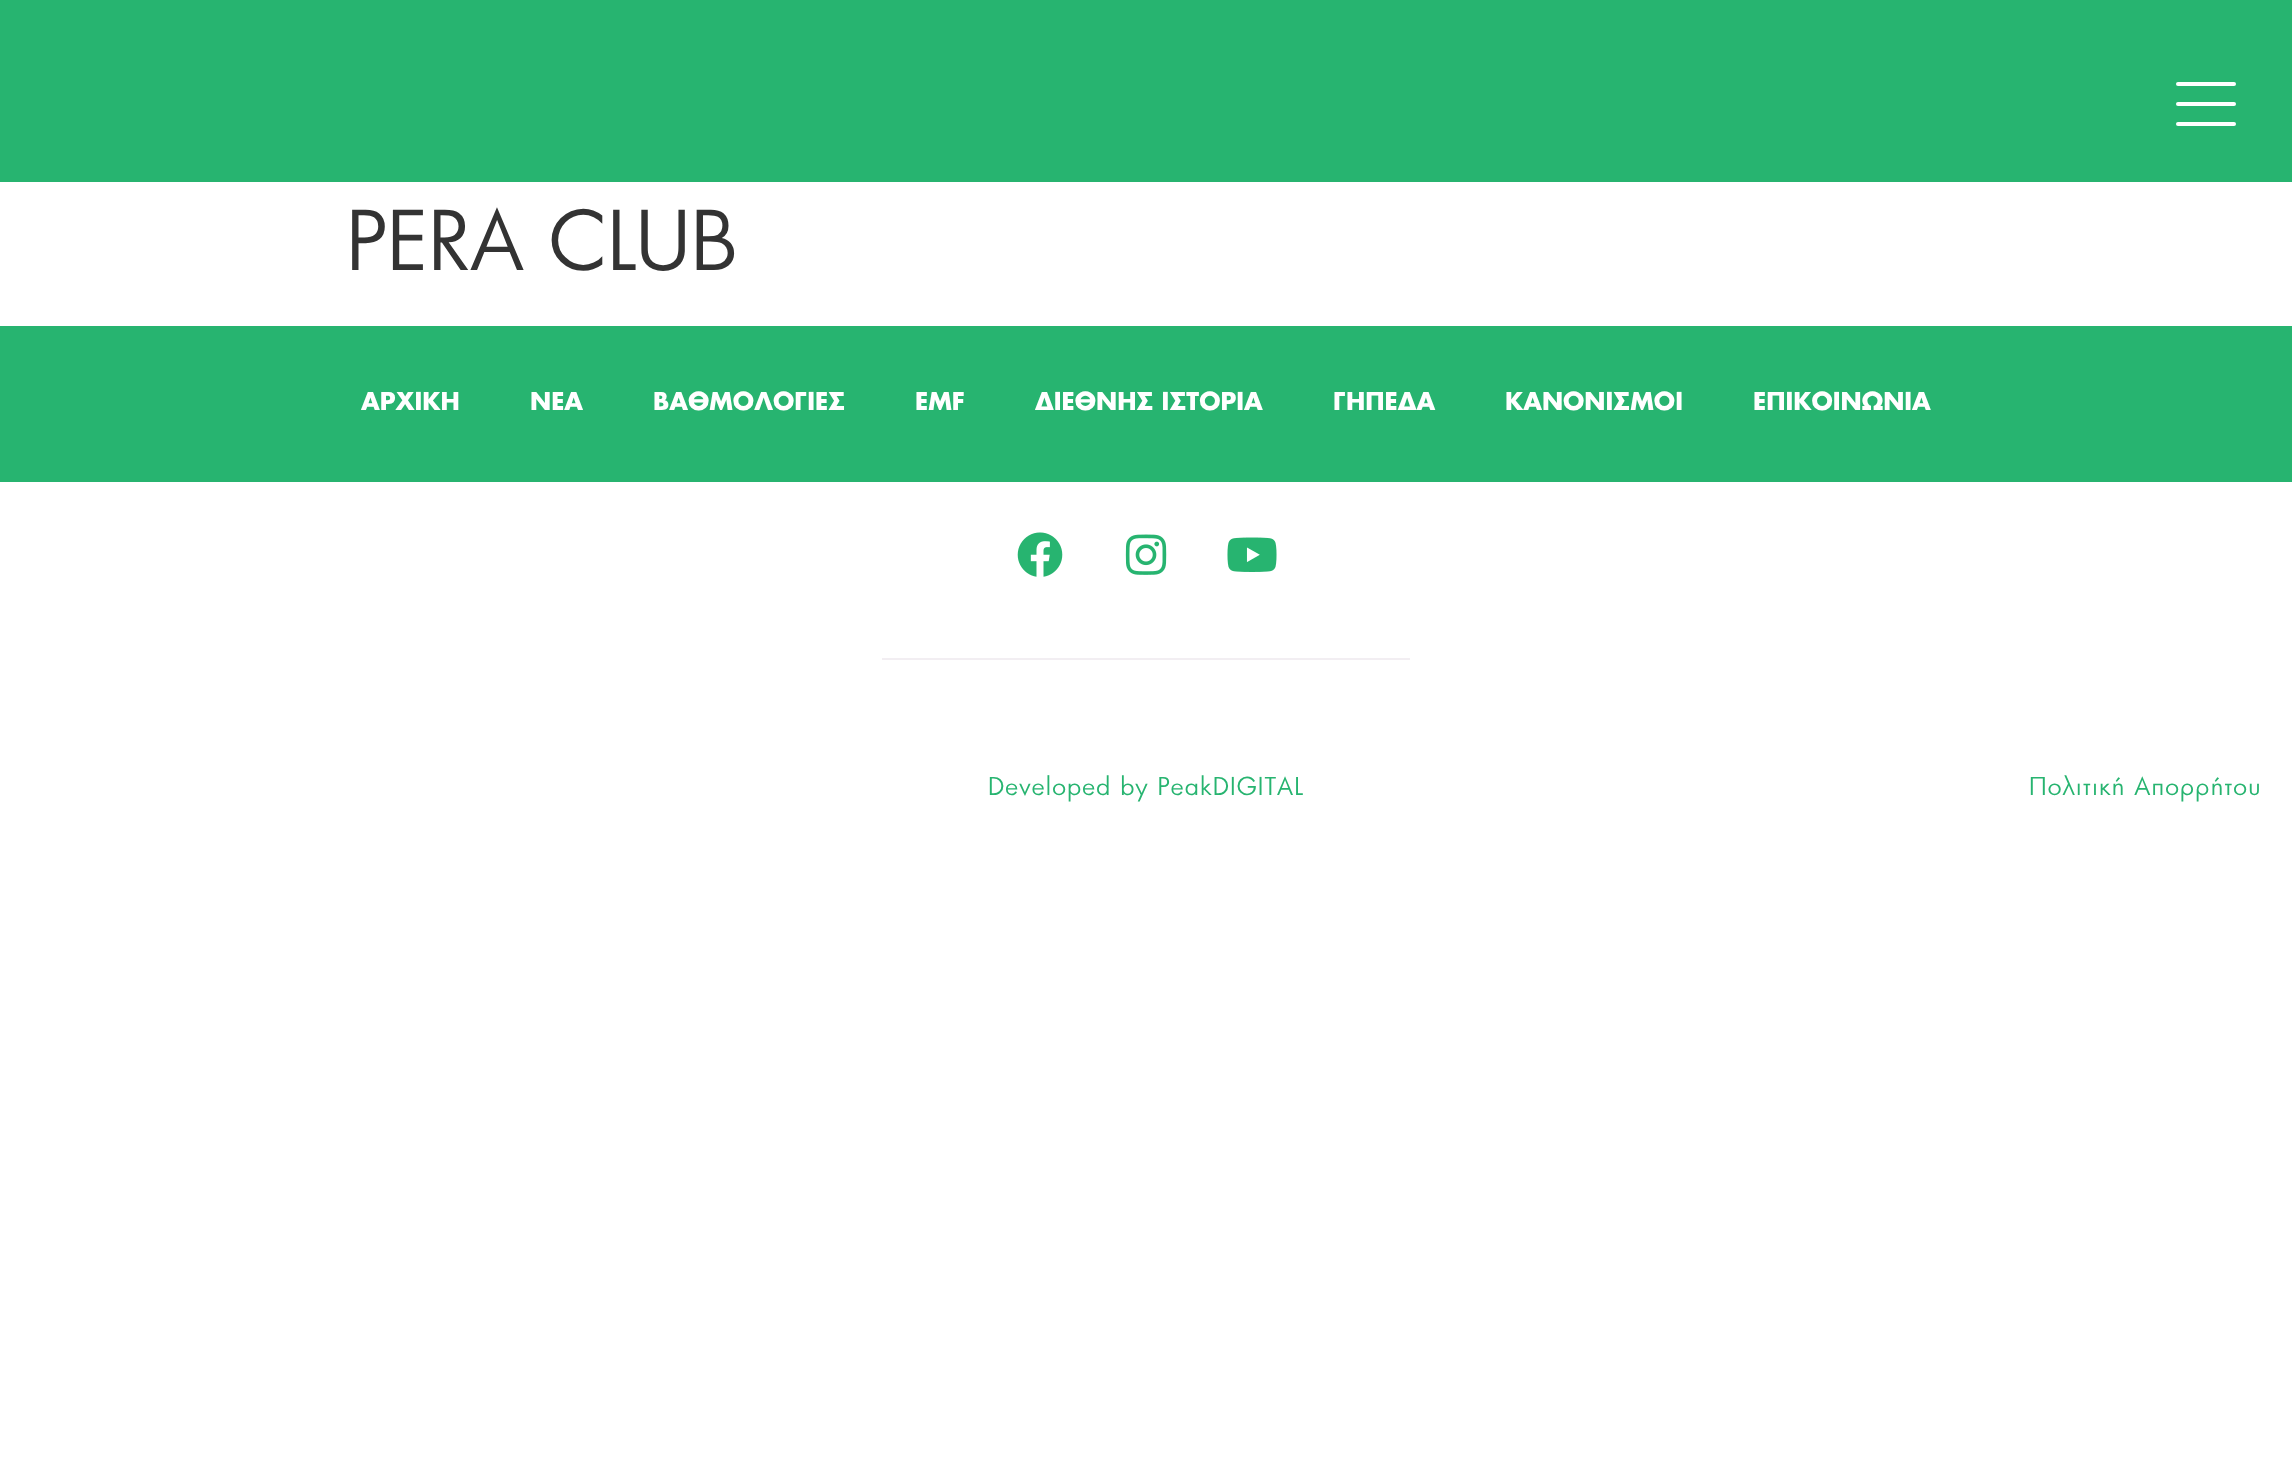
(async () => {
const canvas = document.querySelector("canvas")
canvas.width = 2292
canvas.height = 1460
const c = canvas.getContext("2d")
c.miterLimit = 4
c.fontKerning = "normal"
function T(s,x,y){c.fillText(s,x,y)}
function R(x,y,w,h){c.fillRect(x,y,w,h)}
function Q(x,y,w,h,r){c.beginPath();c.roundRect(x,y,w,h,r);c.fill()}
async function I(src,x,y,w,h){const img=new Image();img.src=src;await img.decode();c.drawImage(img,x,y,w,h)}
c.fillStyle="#fff"
R(0,0,2292,1460)
c.fillStyle="#27b470"
R(0,0,2292,182)
c.fillStyle="#fff"
Q(2176,102,60,4,2)
Q(2176,82,60,4,2)
Q(2176,122,60,4,2)
c.font="80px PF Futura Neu"
c.fillStyle="#333"
T("PERA CLUB",346,270)
c.fillStyle="#27b470"
R(0,326,2292,156)
c.font="bold 24px PF Futura Neu"
c.fillStyle="#fff"
T("ΑΡΧΙΚΗ",361,410)
T("ΝΕΑ",530,410)
T("ΒΑΘΜΟΛΟΓΙΕΣ",653,410)
T("EMF",915,410)
T("ΔΙΕΘΝΗΣ ΙΣΤΟΡΙΑ",1035,410)
T("ΓΗΠΕΔΑ",1333,410)
T("ΚΑΝΟΝΙΣΜΟΙ",1505,410)
T("ΕΠΙΚΟΙΝΩΝΙΑ",1753,410)
await I("1.png",1017,532,46,45)
await I("2.png",1125,534,42,41)
await I("3.png",1227,537,50,35)
c.fillStyle="#f2eef2"
R(882,658,528,2)
c.letterSpacing="1.2px"
c.font="24px PF Futura Neu"
c.fillStyle="#27b470"
T("Developed by PeakDIGITAL",988,795)
T("Πολιτική Απορρήτου",2029,795)
})()
